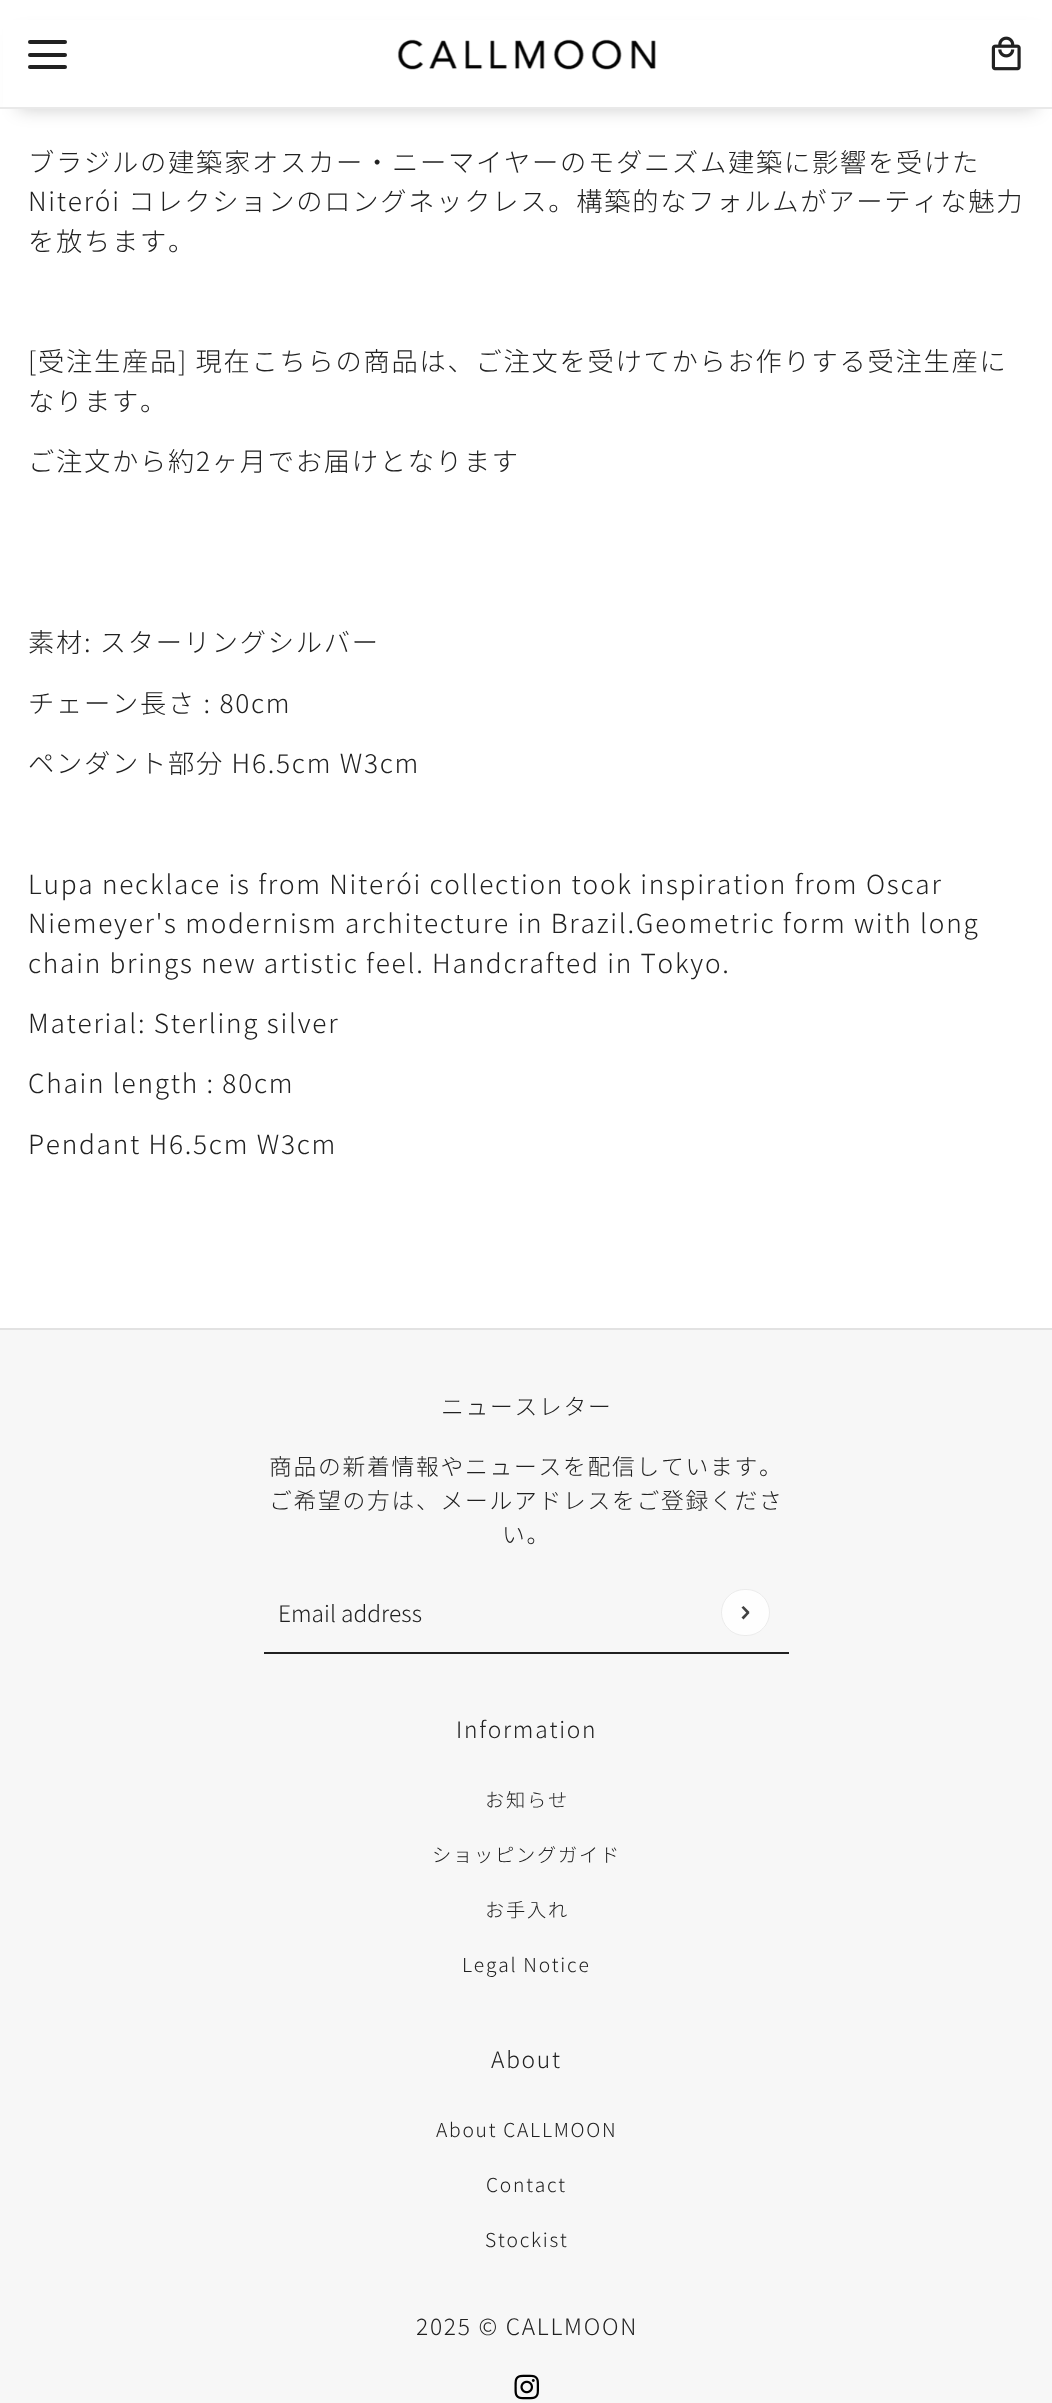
(async () => {
const canvas = document.querySelector("canvas")
canvas.width = 1052
canvas.height = 2403
const c = canvas.getContext("2d")
c.miterLimit = 4
c.fontKerning = "none"
function T(s,x,y){c.fillText(s,x,y)}
function R(x,y,w,h){c.fillRect(x,y,w,h)}
function Q(x,y,w,h,r){c.beginPath();c.roundRect(x,y,w,h,r);c.fill()}
async function I(src,x,y,w,h){const img=new Image();img.src=src;await img.decode();c.drawImage(img,x,y,w,h)}
let path
c.fillStyle="#fff"
R(0,0,1052,2403)
c.fillStyle="#00000033"
c.filter="blur(9px)"
c.beginPath()
c.rect(18,35,1018,74)
c.fill()
c.filter="none"
c.fillStyle="#fff"
R(3,20,1048,87)
c.fillStyle="#212121"
Q(28,40,39,4,2)
Q(28,53,39,4,2)
Q(28,65,39,4,2)
await I("1.png",397,39,259,31)
await I("2.png",991,36,30,35)
c.fillStyle="#e9e9e9"
R(0,107,1052,2)
c.letterSpacing="1.75px"
c.font="300 26.25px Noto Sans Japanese"
c.fillStyle="#212121"
T("ブラジルの建築家オスカー・ニーマイヤーのモダニズム建築に影響を受けた",28,172)
T("Niterói コレクションのロングネックレス。構築的なフォルムがアーティな魅力",28,211)
T("を放ちます。",28,251)
T("[受注生産品] 現在こちらの商品は、ご注文を受けてからお作りする受注生産に",28,371)
T("なります。",28,411)
T("ご注文から約2ヶ月でお届けとなります",28,471)
T("素材: スターリングシルバー",28,652)
T("チェーン長さ : 80cm",28,713)
T("ペンダント部分 H6.5cm W3cm",28,773)
T("Lupa necklace is from Niterói collection took inspiration from",28,894)
T("Oscar",866,894)
T("Niemeyer's modernism architecture in Brazil.Geometric form with long",28,933)
T("chain brings new artistic feel. Handcrafted in Tokyo.",28,973)
T("Material: Sterling silver",28,1033)
T("Chain length : 80cm",28,1093)
T("Pendant H6.5cm W3cm",28,1154)
c.fillStyle="#f7f7f7"
R(0,1330,1052,1073)
c.fillStyle="#e2e2e2"
R(0,1328,1052,2)
c.font="300 22.75px Noto Sans Japanese"
c.fillStyle="#212121"
T("ニュースレター",441,1415)
T("商品の新着情報やニュースを配信しています",269,1475)
T("。",759,1475)
T("ご希望の方は、メールアドレスをご登録くださ",269,1509)
T("い。",502,1543)
R(264,1652,525,2)
c.letterSpacing="0px"
T("Email address",278,1622)
c.fillStyle="#fefefe"
Q(721,1589,49,47,23.5)
c.beginPath()
c.roundRect(721.5,1589.5,48,46,23)
c.strokeStyle="#4141411a"
c.stroke()
c.fillStyle="#414141"
path = new Path2D("M741.5 1617.5l6-6l2 1.5l-6 6.5z")
c.fill(path)
path = new Path2D("M743.5 1606l6 6l-2 2l-6-6.5z")
c.fill(path)
c.letterSpacing="1.75px"
c.fillStyle="#212121"
T("Information",456,1738)
c.font="300 19.25px Noto Sans Japanese"
T("お知らせ",485,1807)
T("ショッピングガイド",432,1862)
T("お手入れ",485,1917)
T("Legal Notice",462,1972)
c.font="300 22.75px Noto Sans Japanese"
T("About",491,2068)
c.font="300 19.25px Noto Sans Japanese"
T("About CALLMOON",436,2137)
T("Contact",486,2192)
T("Stockist",485,2247)
c.font="300 22.75px Noto Sans Japanese"
T("2025 © CALLMOON",416,2335)
await I("3.png",514,2374,25,26)
})()
